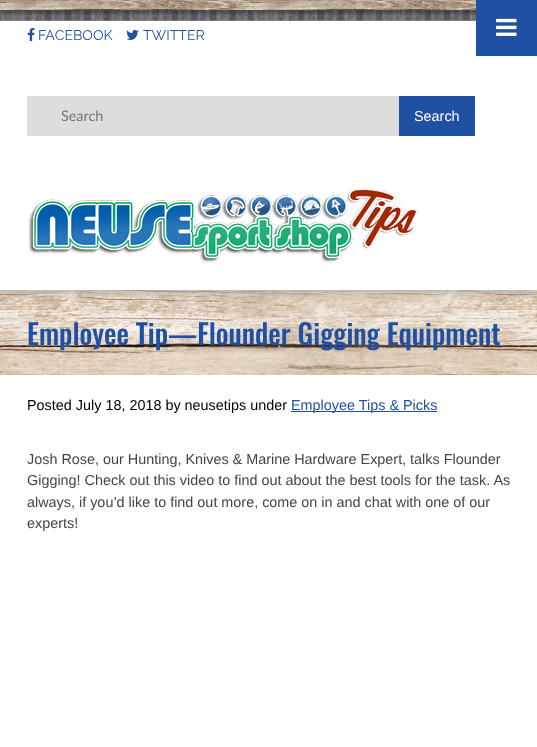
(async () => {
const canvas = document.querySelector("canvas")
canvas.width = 537
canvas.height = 747
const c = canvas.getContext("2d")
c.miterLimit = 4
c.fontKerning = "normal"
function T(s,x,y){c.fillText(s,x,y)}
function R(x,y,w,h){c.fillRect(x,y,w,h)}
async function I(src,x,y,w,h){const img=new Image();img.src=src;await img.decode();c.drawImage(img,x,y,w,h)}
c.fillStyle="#fff"
R(0,0,537,747)
await I("6.png",0,290,537,85)
c.save()
c.beginPath()
c.rect(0,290,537,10)
c.clip()
c.fillStyle="#aeaeae"
c.filter="blur(4px)"
c.beginPath()
c.rect(0,2,537,290)
c.fill()
c.filter="none"
c.restore()
c.fillStyle="#1f50a3"
R(476,0,61,56)
await I("1.png",496,18,21,18)
await I("2.png",0,0,476,21)
await I("3.png",27,28,8,13)
c.font="14px Raleway"
T("FACEBOOK",38,40)
await I("4.png",126,30,13,10)
T("TWITTER",143,40)
c.fillStyle="#ddd"
R(27,96,372,40)
c.font="14.4px Lato"
c.fillStyle="#757575"
T("Search",61,121)
c.fillStyle="#1f50a3"
R(399,96,76,40)
c.font="14.4px Liberation Sans"
c.fillStyle="#fff"
T("Search",414,121)
await I("5.png",28,189,390,74)
c.font="500 28px Oswald"
c.fillStyle="#1f50a3"
T("Employee Tip—Flounder Gigging Equipment",27,345)
c.font="14.4px Liberation Sans"
c.fillStyle="#000"
T("Posted July 18, 2018 by neusetips under",27,410)
c.fillStyle="#1f50a3"
R(291,411,146,1)
T("Employee Tips & Picks",291,410)
c.fillStyle="#444"
T("Josh Rose, our Hunting, Knives & Marine Hardware Expert, talks Flounder",27,464)
T("Gigging! Check out this video to find out about the best tools for the task. As",27,485)
T("always, if you’d like to find out more, come on in and chat with one of our",27,507)
T("experts!",27,528)
})()
